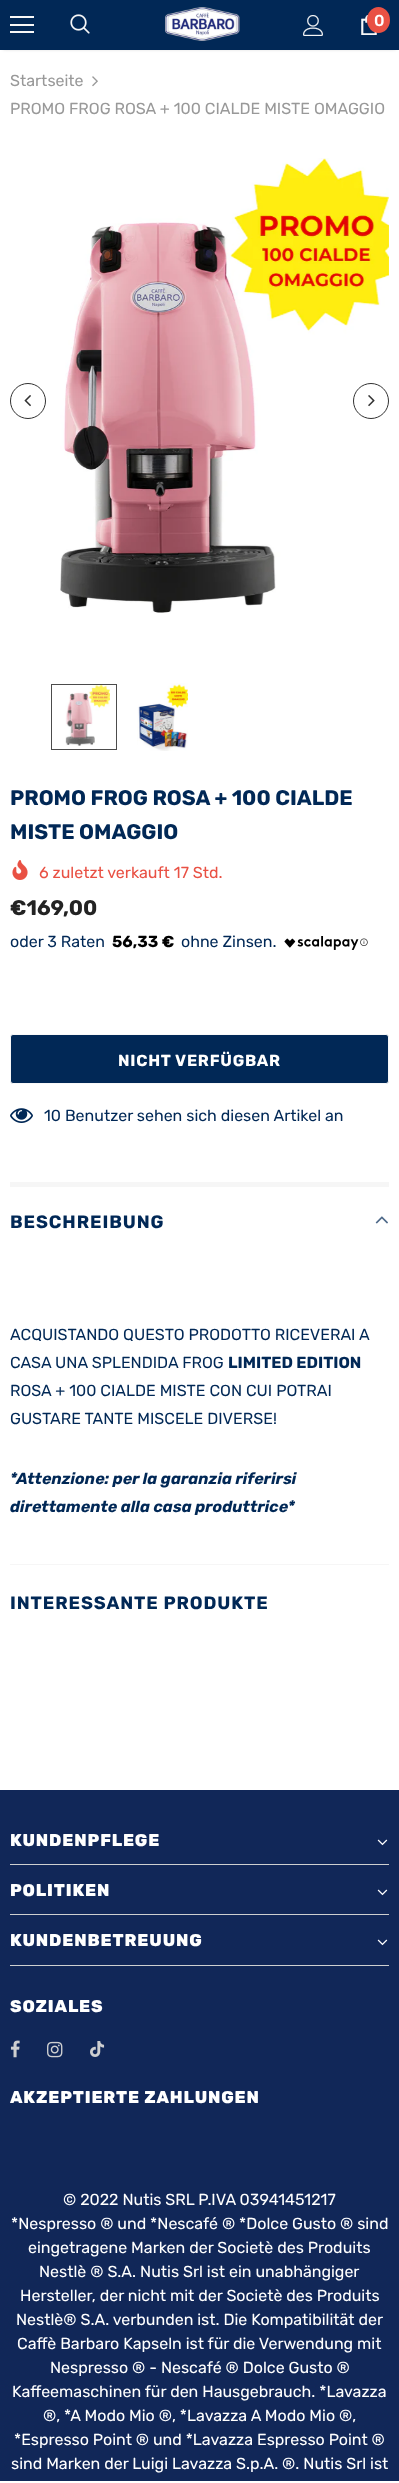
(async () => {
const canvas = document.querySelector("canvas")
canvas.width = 399
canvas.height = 2483
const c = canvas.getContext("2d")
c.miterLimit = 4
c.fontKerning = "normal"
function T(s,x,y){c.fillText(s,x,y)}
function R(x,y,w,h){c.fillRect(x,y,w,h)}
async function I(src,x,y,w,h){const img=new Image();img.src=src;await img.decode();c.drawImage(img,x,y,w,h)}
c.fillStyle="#fff"
R(0,0,399,2483)
c.fillStyle="#0000001f"
c.filter="blur(1.5px)"
c.beginPath()
c.rect(3,6,393,44)
c.fill()
c.filter="none"
c.fillStyle="#012856"
R(0,0,399,50)
c.fillStyle="#f8f8f8"
R(10,16,24,2)
R(10,24,24,2)
R(10,31,24,2)
await I("1.png",70,14,20,20)
await I("2.png",165,7,75,34)
await I("3.png",303,15,20,21)
await I("4.png",361,15,16,20)
c.fillStyle="#e95144"
c.beginPath()
c.ellipse(378.5,20,11.5,13,0,0,7)
c.fill()
c.font="500 16px Rubik"
c.fillStyle="#fff"
T("0",374,26)
c.font="16px Rubik"
c.fillStyle="#999"
T("Startseite",10,86)
await I("5.png",92,76,6,11)
T("PROMO FROG ROSA + 100 CIALDE MISTE OMAGGIO",10,114)
c.beginPath()
c.arc(28,401,17.5,0,7)
c.strokeStyle="#323232"
c.stroke()
await I("6.png",24,395,7,12)
await I("7.png",60,158,329,455)
c.beginPath()
c.arc(371,401,17.5,0,7)
c.stroke()
await I("8.png",368,395,7,12)
await I("9.png",65,684,45,62)
c.strokeStyle="#000000b3"
c.strokeRect(51.5,684.5,65,65)
await I("10.png",137,683,51,68)
c.font="bold 21px Rubik"
c.fillStyle="#012856"
T("PROMO FROG ROSA + 100 CIALDE",10,805)
T("MISTE OMAGGIO",10,839)
await I("11.png",12,860,16,20)
c.font="16px Rubik"
c.fillStyle="#e95144"
T("6 zuletzt verkauft 17 Std.",39,878)
c.font="bold 21px Rubik"
c.fillStyle="#232323"
T("€169,00",10,915)
c.font="16px Rubik"
c.fillStyle="#012856"
T("oder 3 Raten",10,947)
c.font="bold 16px Rubik"
c.fillStyle="#000"
T("56,33 €",112,947)
c.font="16px Rubik"
c.fillStyle="#012856"
T("ohne Zinsen.",181,947)
await I("12.png",284,936,75,14)
await I("13.png",360,938,8,8)
c.beginPath()
c.roundRect(10.5,1034.5,378,49,2.5)
c.fill()
c.strokeStyle="#f8f8f8"
c.stroke()
c.letterSpacing="0.75px"
c.font="bold 16px Rubik"
c.fillStyle="#fff"
T("NICHT VERFÜGBAR",118,1066)
await I("14.png",10,1108,23,15)
c.letterSpacing="0px"
c.font="16px Rubik"
c.fillStyle="#012856"
T("10 Benutzer sehen sich diesen Artikel an",44,1121)
c.fillStyle="#f6f6f6"
R(10,1182,379,5)
c.letterSpacing="0.9px"
c.font="bold 18px Rubik"
c.fillStyle="#012856"
T("BESCHREIBUNG",10,1228)
await I("15.png",375,1216,13,8)
c.letterSpacing="0px"
c.font="16px Rubik"
T("ACQUISTANDO QUESTO PRODOTTO RICEVERAI A",10,1340)
T("CASA UNA SPLENDIDA FROG",10,1368)
c.font="bold 16px Rubik"
T("LIMITED EDITION",228,1368)
c.font="16px Rubik"
T("ROSA + 100 CIALDE MISTE CON CUI POTRAI",10,1396)
T("GUSTARE TANTE MISCELE DIVERSE!",10,1424)
c.font="italic bold 16px Rubik"
T("*Attenzione: per la garanzia riferirsi",10,1484)
T("direttamente alla casa produttrice*",10,1512)
c.fillStyle="#f6f6f6"
R(10,1564,379,1)
c.letterSpacing="0.9px"
c.font="bold 18px Rubik"
c.fillStyle="#012856"
T("INTERESSANTE PRODUKTE",10,1609)
c.fillStyle="#112758"
R(0,1790,399,691)
c.fillStyle="#cecfd0"
R(10,1864,379,1)
c.letterSpacing="0.85px"
c.font="800 17px Rubik"
c.fillStyle="#fff"
T("KUNDENPFLEGE",10,1846)
await I("16.png",377,1839,11,7)
c.fillStyle="#cecfd0"
R(10,1914,379,1)
c.fillStyle="#fff"
T("POLITIKEN",10,1896)
await I("16.png",377,1889,11,7)
c.fillStyle="#cecfd0"
R(10,1965,379,1)
c.fillStyle="#fff"
T("KUNDENBETREUUNG",10,1946)
await I("16.png",377,1939,11,7)
T("SOZIALES",10,2012)
await I("17.png",10,2040,10,18)
await I("18.png",47,2041,16,17)
await I("19.png",90,2041,15,16)
T("AKZEPTIERTE ZAHLUNGEN",10,2103)
c.letterSpacing="0px"
c.font="16px Rubik"
T("© 2022 Nutis SRL P.IVA 03941451217",63,2205)
T("*Nespresso ® und *Nescafé ® *Dolce Gusto ® sind",11,2229)
T("eingetragene Marken der Societè des Produits",28,2253)
T("Nestlè ® S.A. Nutis Srl ist ein unabhängiger",39,2277)
T("Hersteller, der nicht mit der Societè des Produits",20,2301)
T("Nestlè® S.A. verbunden ist. Die Kompatibilität der",16,2325)
T("Caffè Barbaro Kapseln ist für die Verwendung mit",17,2349)
T("Nespresso ® - Nescafé ® Dolce Gusto ®",50,2373)
T("Kaffeemaschinen für den Hausgebrauch. *Lavazza",12,2397)
T("®, *A Modo Mio ®, *Lavazza A Modo Mio ®,",43,2421)
T("*Espresso Point ® und *Lavazza Espresso Point ®",14,2445)
T("sind Marken der Luigi Lavazza S.p.A. ®. Nutis Srl ist",11,2469)
})()
